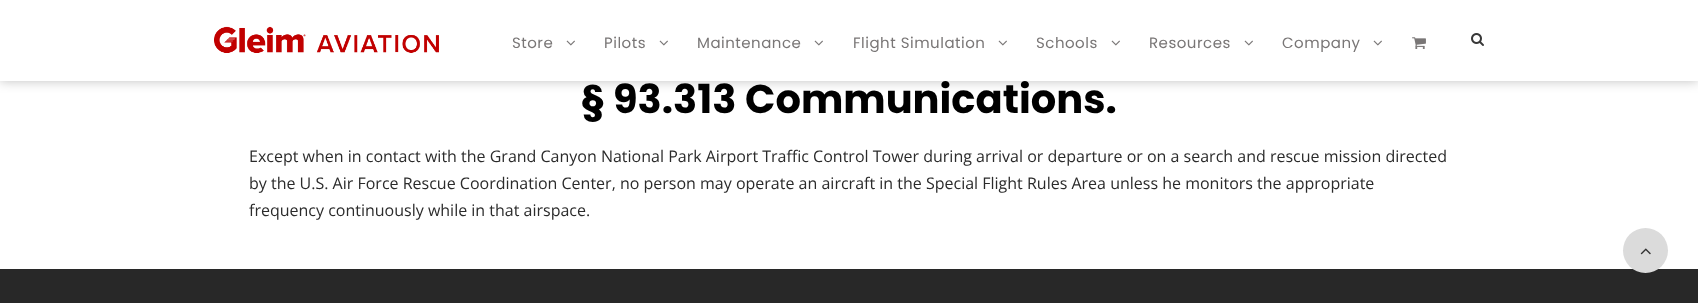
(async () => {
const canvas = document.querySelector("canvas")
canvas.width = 1698
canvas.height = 303
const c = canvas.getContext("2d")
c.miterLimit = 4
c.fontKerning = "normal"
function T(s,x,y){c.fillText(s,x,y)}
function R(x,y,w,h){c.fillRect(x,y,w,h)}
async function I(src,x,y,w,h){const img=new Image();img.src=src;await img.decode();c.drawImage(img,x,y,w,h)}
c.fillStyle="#fff"
R(0,0,1698,303)
c.fillStyle="#00000040"
c.filter="blur(6px)"
c.beginPath()
c.rect(0,0,1698,81)
c.fill()
c.filter="none"
c.font="bold 40px Poppins"
c.fillStyle="#000"
T("§ 93.313 Communications.",581,113)
c.fillStyle="#fff"
R(0,0,1698,81)
await I("1.png",214,26,225,27)
c.letterSpacing="0.5px"
c.font="15px Poppins"
c.fillStyle="#797676"
T("Store",512,48)
await I("2.png",566,40,9,6)
T("Pilots",604,48)
await I("2.png",659,40,9,6)
T("Maintenance",697,48)
await I("2.png",814,40,9,6)
T("Flight Simulation",853,48)
await I("2.png",998,40,9,6)
T("Schools",1036,48)
await I("2.png",1111,40,9,6)
T("Resources",1149,48)
await I("2.png",1244,40,9,6)
T("Company",1282,48)
await I("2.png",1373,40,9,6)
await I("3.png",1412,37,14,12)
await I("4.png",1471,33,13,13)
c.letterSpacing="0px"
c.font="16px Open Sans"
c.fillStyle="#2b2b2b"
T("Except when in contact with the Grand Canyon National Park Airport Traffic Control Tower during arrival or departure or on a search and rescue mission directed",249,162)
T("by the U.S. Air Force Rescue Coordination Center, no person may operate an aircraft in the Special Flight Rules Area unless he monitors the appropriate",249,189)
T("frequency continuously while in that airspace.",249,216)
c.fillStyle="#282828"
R(0,269,1698,34)
c.fillStyle="#dbdbdb"
c.beginPath()
c.arc(1645.5,250.5,22.5,0,7)
c.fill()
await I("5.png",1640,248,11,7)
})()
